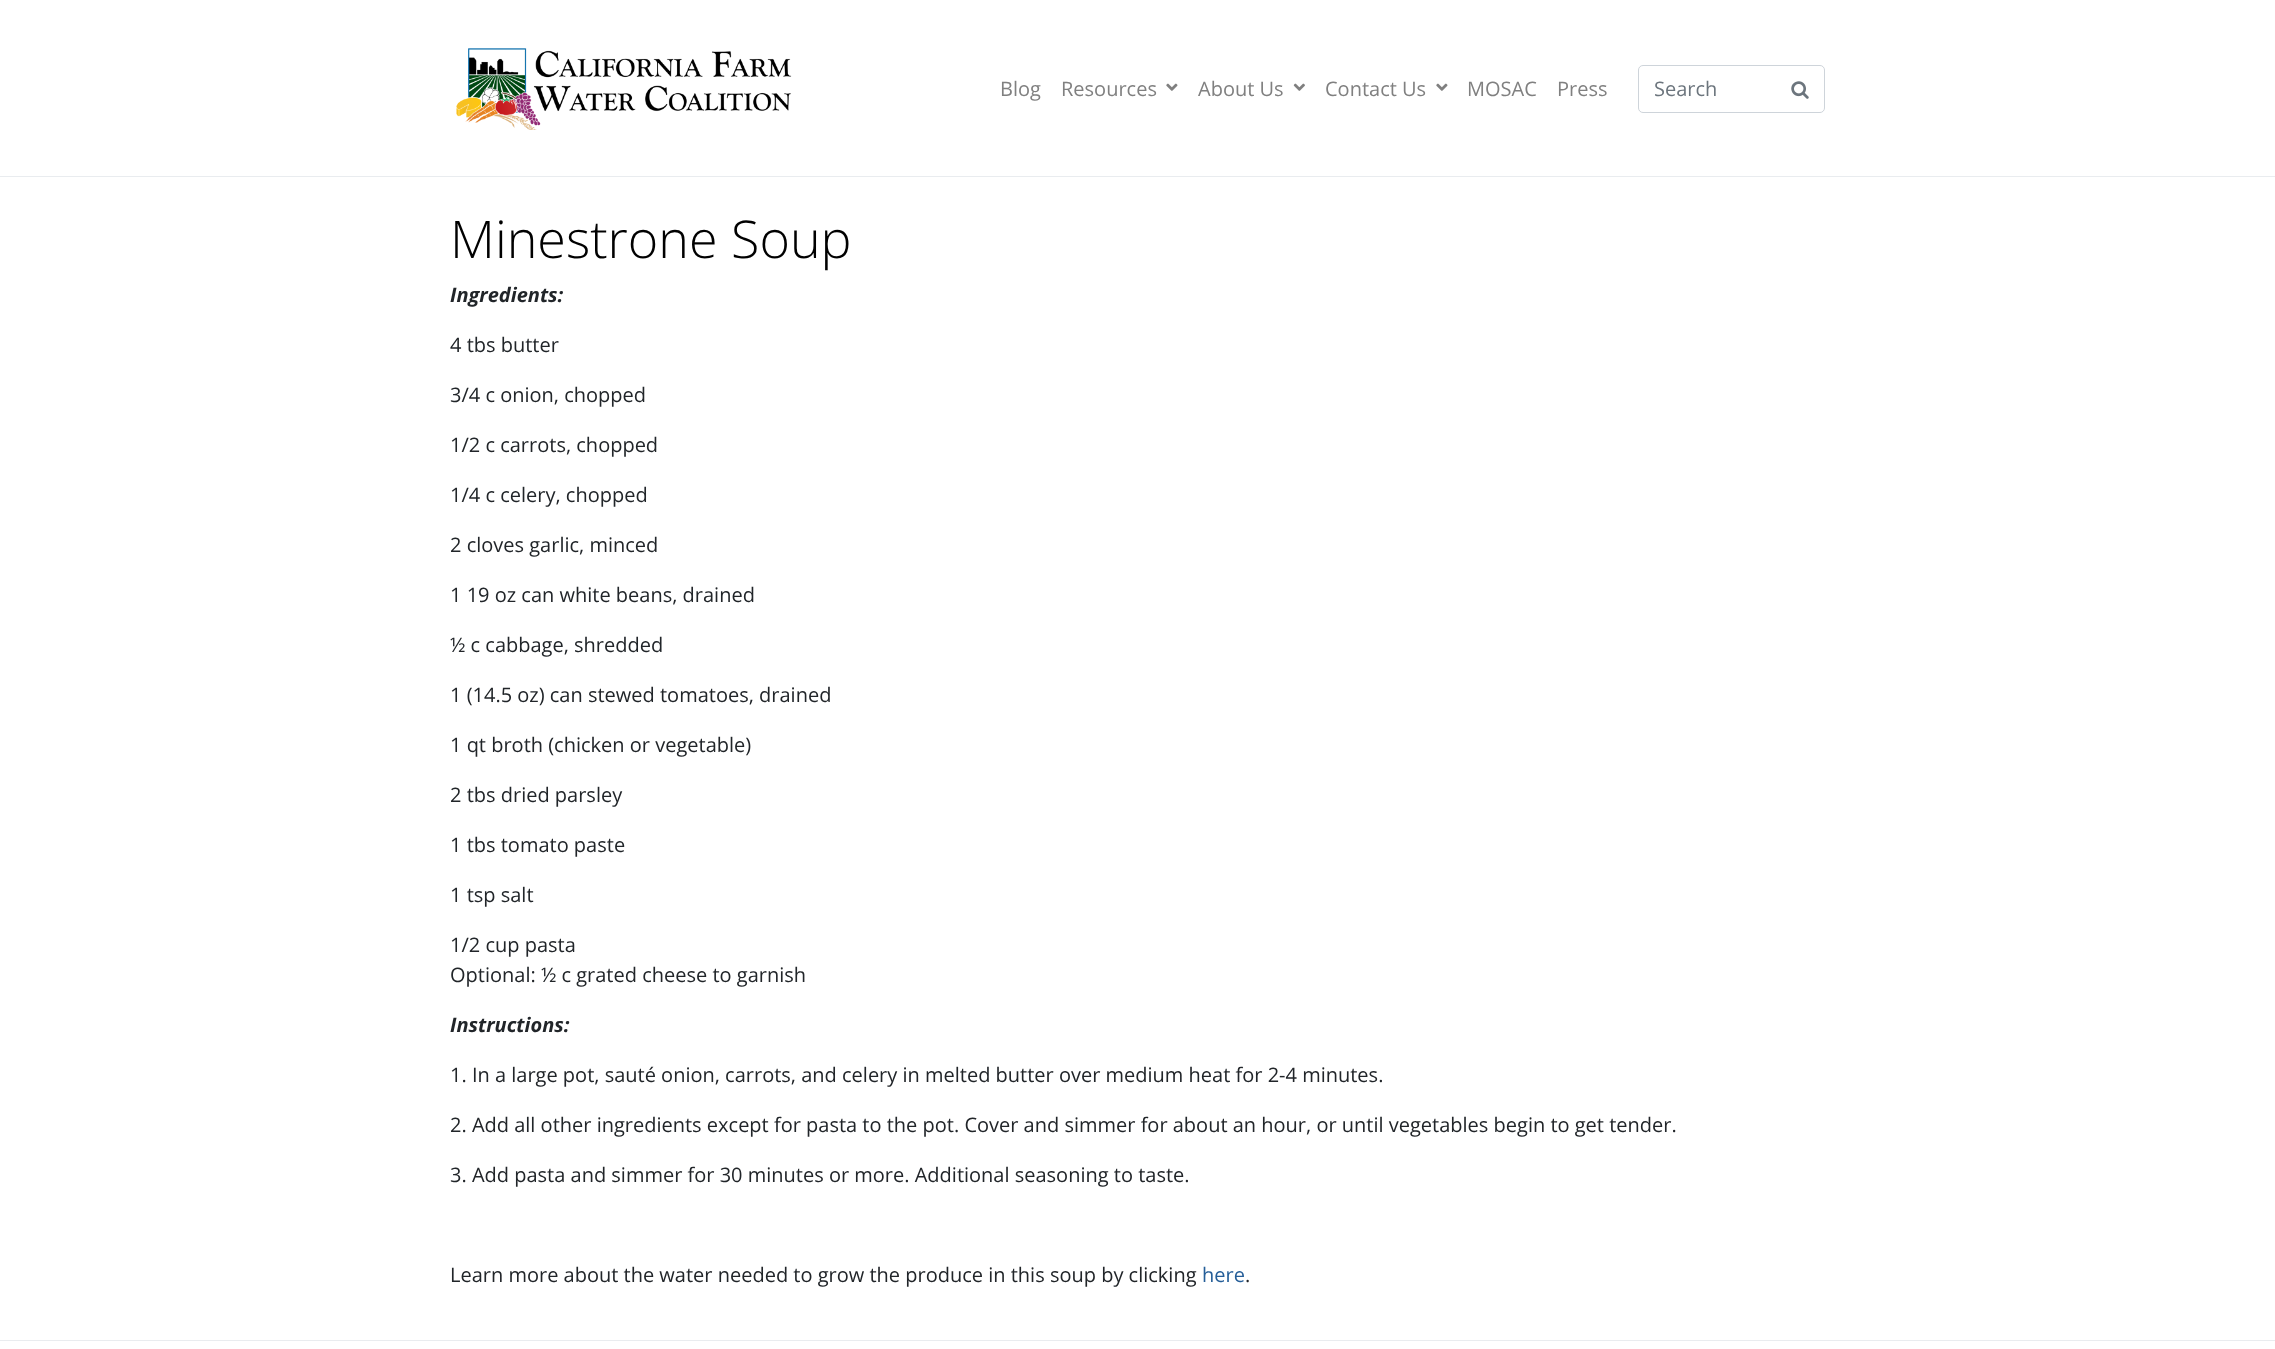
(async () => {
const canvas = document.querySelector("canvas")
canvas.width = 2275
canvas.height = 1349
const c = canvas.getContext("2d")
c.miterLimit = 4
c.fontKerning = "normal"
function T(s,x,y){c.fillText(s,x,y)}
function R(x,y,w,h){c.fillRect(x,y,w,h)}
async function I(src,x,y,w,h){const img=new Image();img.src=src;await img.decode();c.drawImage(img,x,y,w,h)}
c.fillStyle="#fff"
R(0,0,2275,1349)
c.fillStyle="#e9ecef"
R(0,176,2275,1)
await I("1.png",456,48,336,82)
c.font="20px Open Sans"
c.fillStyle="#808080"
T("Blog",1000,96)
T("Resources",1061,96)
await I("2.png",1166,83,12,8)
T("About Us",1198,96)
await I("3.png",1293,83,12,8)
T("Contact Us",1325,96)
await I("2.png",1436,83,12,8)
T("MOSAC",1467,96)
T("Press",1557,96)
c.beginPath()
c.roundRect(1638.5,65.5,186,47,4.5)
c.strokeStyle="#ced4da"
c.stroke()
c.fillStyle="#6c757d"
T("Search",1654,96)
await I("4.png",1791,81,18,18)
c.font="300 52px Open Sans"
c.fillStyle="#000"
T("Minestrone Soup",450,258)
c.font="italic bold 20px Open Sans"
c.fillStyle="#212529"
T("Ingredients:",450,302)
c.font="20px Open Sans"
T("4 tbs butter",450,352)
T("3/4 c onion, chopped",450,402)
T("1/2 c carrots, chopped",450,452)
T("1/4 c celery, chopped",450,502)
T("2 cloves garlic, minced",450,552)
T("1 19 oz can white beans, drained",450,602)
T("½ c cabbage, shredded",450,652)
T("1 (14.5 oz) can stewed tomatoes, drained",450,702)
T("1 qt broth (chicken or vegetable)",450,752)
T("2 tbs dried parsley",450,802)
T("1 tbs tomato paste",450,852)
T("1 tsp salt",450,902)
T("1/2 cup pasta",450,952)
T("Optional: ½ c grated cheese to garnish",450,982)
c.font="italic bold 20px Open Sans"
T("Instructions:",450,1032)
c.font="20px Open Sans"
T("1. In a large pot, sauté onion, carrots, and celery in melted butter over medium heat for 2-4 minutes.",450,1082)
T("2. Add all other ingredients except for pasta to the pot. Cover and simmer for about an hour, or until vegetables begin to get tender.",450,1132)
T("3. Add pasta and simmer for 30 minutes or more. Additional seasoning to taste.",450,1182)
T("Learn more about the water needed to grow the produce in this soup by clicking",450,1282)
c.fillStyle="#255e98"
T("here",1202,1282)
c.fillStyle="#212529"
T(".",1245,1282)
c.fillStyle="#e9ecef"
R(0,1340,2275,1)
})()
